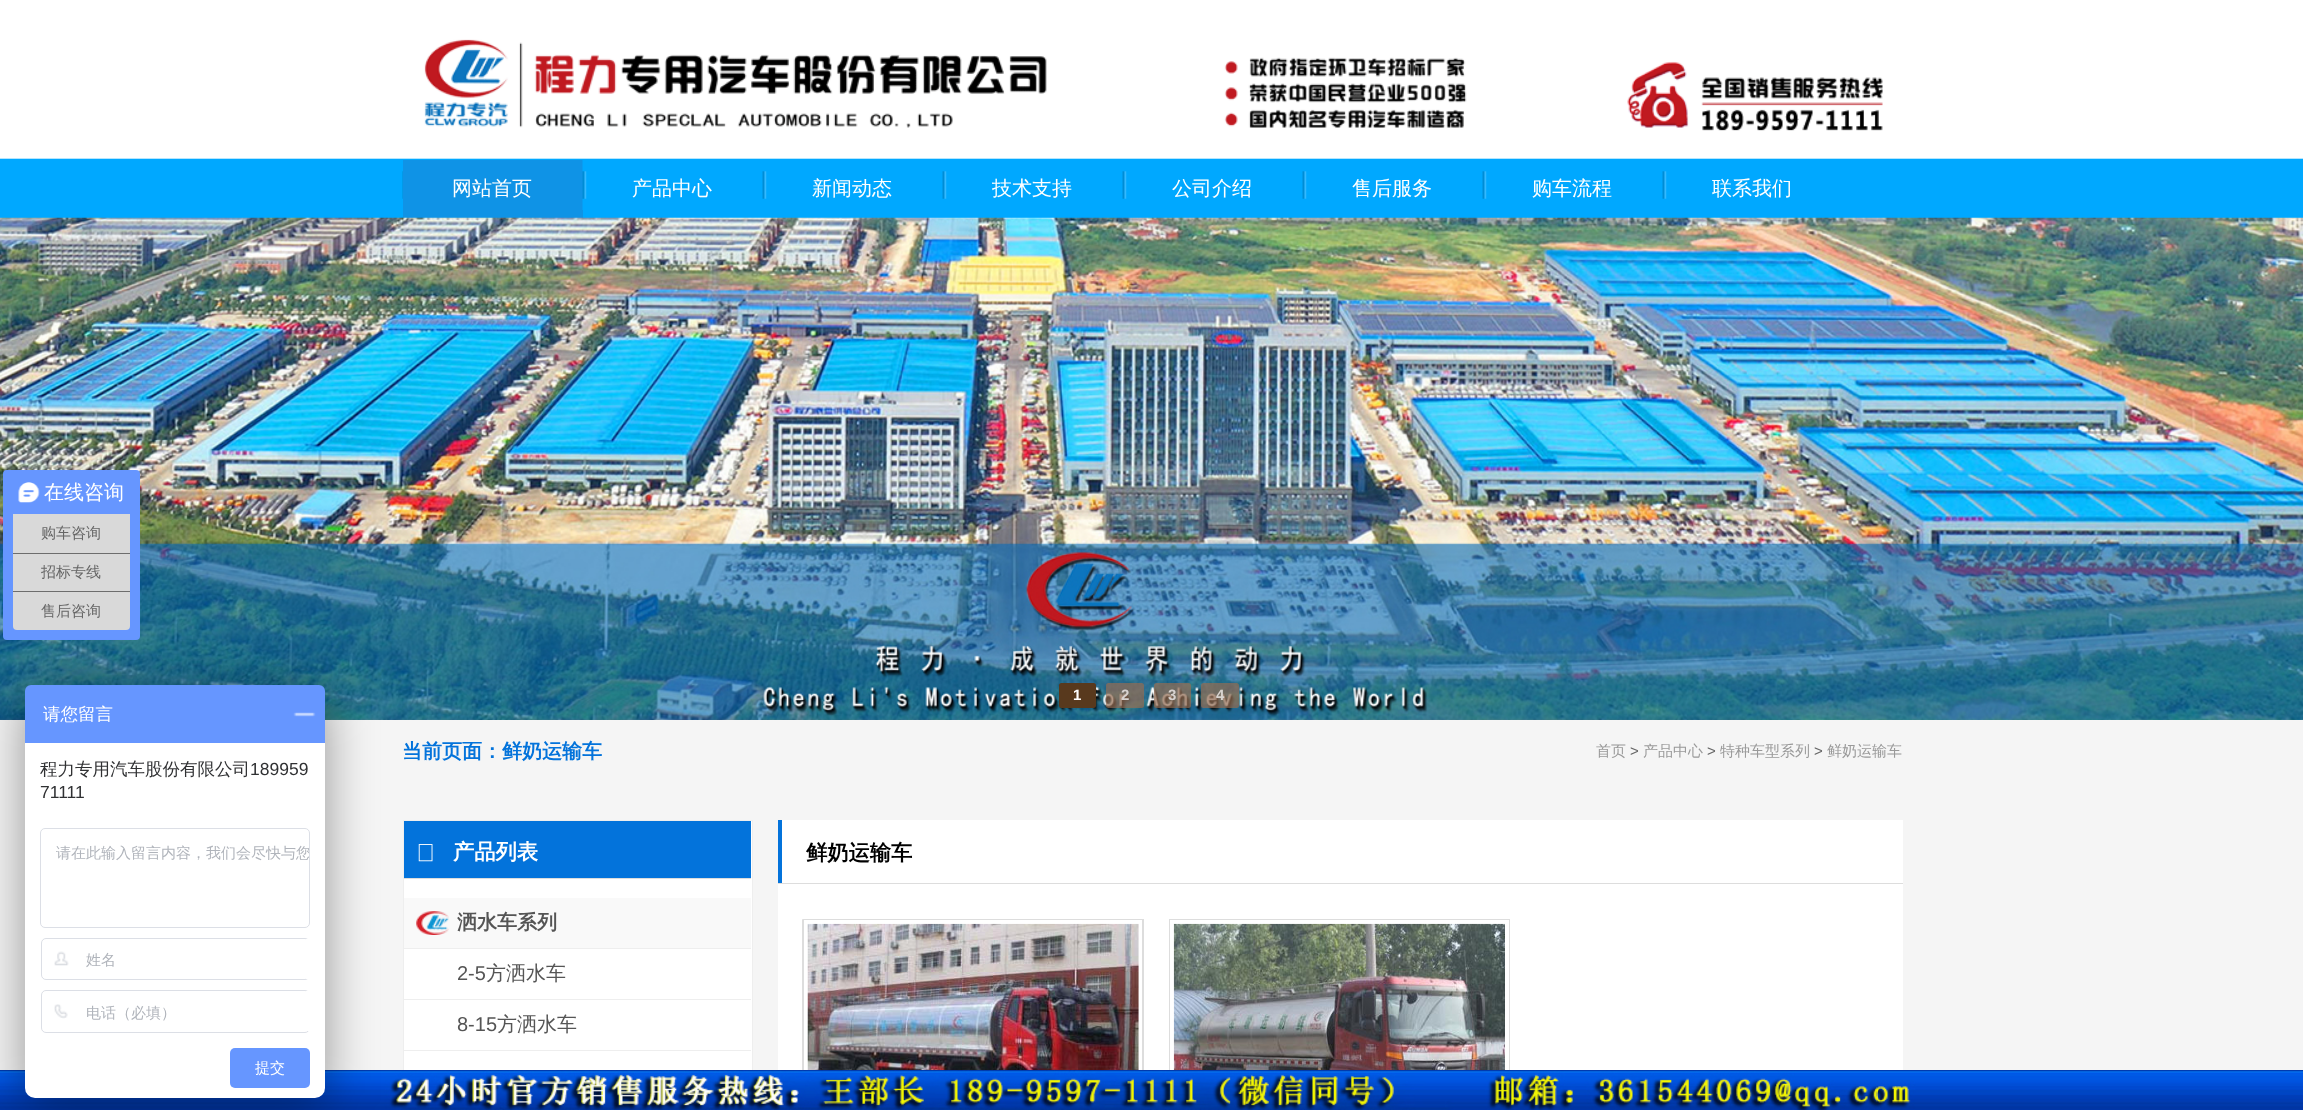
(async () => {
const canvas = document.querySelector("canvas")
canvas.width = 2303
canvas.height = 1110
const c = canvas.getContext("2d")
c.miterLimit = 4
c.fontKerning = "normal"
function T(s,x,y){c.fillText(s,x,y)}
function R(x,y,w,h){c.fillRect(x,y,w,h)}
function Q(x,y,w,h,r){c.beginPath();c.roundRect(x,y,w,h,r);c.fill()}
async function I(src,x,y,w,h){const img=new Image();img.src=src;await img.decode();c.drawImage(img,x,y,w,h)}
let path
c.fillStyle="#fff"
R(0,0,2303,1110)
await I("1.png",0,158,2303,2)
await I("2.png",424,39,1459,92)
c.fillStyle="#00a8ff"
R(0,160,2303,58)
await I("3.png",402,171,1,28)
c.fillStyle="#0f93e6"
R(403,160,180,58)
c.font="500 20px WenQuanYi Zen Hei"
c.fillStyle="#fff"
T("网站首页",452,195)
await I("4.png",582,160,5,50)
T("产品中心",632,195)
await I("5.png",762,171,5,28)
T("新闻动态",812,195)
await I("5.png",942,171,5,28)
T("技术支持",992,195)
await I("5.png",1122,171,5,28)
T("公司介绍",1172,195)
await I("5.png",1302,171,5,28)
T("售后服务",1352,195)
await I("5.png",1482,171,5,28)
T("购车流程",1532,195)
await I("5.png",1662,171,5,28)
T("联系我们",1712,195)
await I("10.png",0,217,2303,503)
c.fillStyle="#6696ff"
Q(3,470,137,170,4)
await I("6.png",18,482,22,21)
c.fillStyle="#fff"
T("在线咨询",44,499)
c.fillStyle="#d9d9d9"
R(13,514,117,39)
c.fillStyle="#6d6d6d"
R(13,553,117,1)
c.font="500 15px WenQuanYi Zen Hei"
c.fillStyle="#666"
T("购车咨询",41,538)
c.fillStyle="#d9d9d9"
R(13,554,117,39)
c.fillStyle="#6d6d6d"
R(13,591,117,1)
c.fillStyle="#666"
T("招标专线",41,577)
c.fillStyle="#d9d9d9"
c.beginPath()
c.roundRect(13,593,117,37,[0,0,4,4])
c.fill()
c.fillStyle="#666"
T("售后咨询",41,616)
c.fillStyle="#f5f5f5"
R(0,720,2303,350)
c.fillStyle="#fff"
R(404,821,348,249)
c.strokeStyle="#eee"
c.strokeRect(403.5,820.5,349,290)
R(778,820,1125,250)
c.fillStyle="#ddd"
R(803,919,341,1)
path = new Path2D("M1144 919v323l-2-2v-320z")
c.fill(path)
path = new Path2D("M802 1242v-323l2 1v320z")
c.fill(path)
R(1169,919,341,1)
path = new Path2D("M1510 919v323l-1-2v-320z")
c.fill(path)
path = new Path2D("M1169 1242v-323l1 1v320z")
c.fill(path)
await I("15.png",0,1070,2303,40)
c.fillStyle="#00000066"
c.filter="blur(25px)"
c.beginPath()
c.roundRect(25,695,300,413,10)
c.fill()
c.filter="none"
c.fillStyle="#fff"
Q(25,685,300,413,10)
c.fillStyle="#6696ff"
c.beginPath()
c.roundRect(25,685,300,58,[6,6,0,0])
c.fill()
c.font="500 17.5px WenQuanYi Zen Hei"
c.fillStyle="#fff"
T("请您留言",43,720)
await I("7.png",293,712,23,5)
c.fillStyle="#303133"
T("程力专用汽车股份有限公司",40,775)
c.font="17.5px Liberation Sans"
T("189959",250,775)
T("71111",40,798)
c.beginPath()
c.roundRect(40.5,828.5,269,99,4.5)
c.strokeStyle="#dcdfe6"
c.stroke()
c.save()
c.beginPath()
c.roundRect(41,829,268,97,4)
c.clip()
c.font="500 15px WenQuanYi Zen Hei"
c.fillStyle="#b0b4bb"
T("请在此输入留言内容，我们会尽快与您",56,858)
c.restore()
c.beginPath()
c.roundRect(41.5,938.5,268,41,4.5)
c.stroke()
await I("8.png",54,951,15,15)
c.fillStyle="#fff"
R(306,939,4,40)
c.font="500 15px WenQuanYi Zen Hei"
c.fillStyle="#b0b4bb"
T("姓名",86,965)
c.beginPath()
c.roundRect(41.5,990.5,268,42,4.5)
c.stroke()
await I("9.png",54,1004,14,15)
c.fillStyle="#fff"
R(306,991,4,40)
c.fillStyle="#b0b4bb"
T("电话（必填）",86,1018)
c.fillStyle="#6696ff"
Q(230,1048,80,40,5)
c.fillStyle="#fff"
T("提交",255,1073)
c.fillStyle="#58391d"
Q(1059,683,37,25,2.5)
c.font="bold 15px Liberation Sans"
c.fillStyle="#fff"
T("1",1073,700)
c.fillStyle="#946c52b3"
Q(1106,683,38,25,2.5)
c.fillStyle="#d8d3d0"
T("2",1121,700)
c.fillStyle="#946c52b3"
Q(1154,683,37,25,2.5)
c.fillStyle="#d8d3d0"
T("3",1168,700)
c.fillStyle="#946c52b3"
Q(1201,683,38,25,2.5)
c.fillStyle="#d8d3d0"
T("4",1216,700)
c.font="bold 20px WenQuanYi Zen Hei"
c.fillStyle="#0373db"
T("当前页面：鲜奶运输车",402,758)
c.font="500 15px WenQuanYi Zen Hei"
c.fillStyle="#999"
T("首页",1596,756)
c.font="15px Liberation Sans"
c.fillStyle="#666"
T(">",1630,756)
c.font="500 15px WenQuanYi Zen Hei"
c.fillStyle="#999"
T("产品中心",1643,756)
c.font="15px Liberation Sans"
c.fillStyle="#666"
T(">",1707,756)
c.font="500 15px WenQuanYi Zen Hei"
c.fillStyle="#999"
T("特种车型系列",1720,756)
c.font="15px Liberation Sans"
c.fillStyle="#666"
T(">",1814,756)
c.font="500 15px WenQuanYi Zen Hei"
c.fillStyle="#999"
T("鲜奶运输车",1827,756)
c.fillStyle="#0373db"
R(404,821,347,57)
c.fillStyle="#ddd"
R(404,878,347,1)
await I("11.png",418,844,15,18)
c.font="bold 21.25px WenQuanYi Zen Hei"
c.fillStyle="#fff"
T("产品列表",453,859)
c.fillStyle="#f9f9f9"
R(404,898,347,50)
await I("12.png",416,911,33,24)
c.fillStyle="#eee"
R(404,948,347,1)
c.font="bold 20px WenQuanYi Zen Hei"
c.fillStyle="#555"
T("洒水车系列",457,929)
c.fillStyle="#eee"
R(404,999,347,1)
c.font="20px Liberation Sans"
c.fillStyle="#555"
T("2-5",457,980)
c.font="500 20px WenQuanYi Zen Hei"
T("方洒水车",486,980)
c.fillStyle="#eee"
R(404,1050,347,1)
c.font="20px Liberation Sans"
c.fillStyle="#555"
T("8-15",457,1031)
c.font="500 20px WenQuanYi Zen Hei"
T("方洒水车",497,1031)
c.fillStyle="#0373db"
R(778,820,4,63)
c.font="bold 21.25px WenQuanYi Zen Hei"
c.fillStyle="#000"
T("鲜奶运输车",806,860)
c.fillStyle="#ddd"
R(778,883,1125,1)
await I("13.png",807,923,332,147)
await I("14.png",1173,923,332,147)
})()
